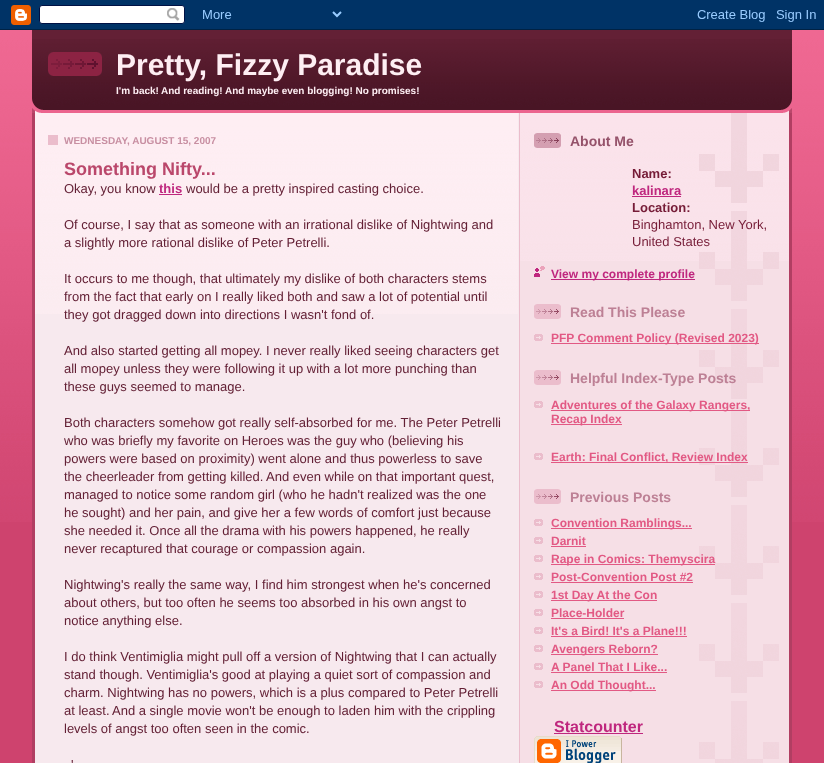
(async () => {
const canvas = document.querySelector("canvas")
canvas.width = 824
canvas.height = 763
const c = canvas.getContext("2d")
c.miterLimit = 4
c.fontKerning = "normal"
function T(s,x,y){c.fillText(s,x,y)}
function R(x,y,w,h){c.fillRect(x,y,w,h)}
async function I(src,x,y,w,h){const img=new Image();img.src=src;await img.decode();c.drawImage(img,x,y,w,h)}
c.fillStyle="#ce436e"
R(0,0,824,763)
await I("1.png",0,30,824,492)
await I("2.png",0,0,824,30)
await I("3.png",32,98,760,15)
c.fillStyle="#632035"
R(32,30,760,9)
await I("4.png",32,39,760,59)
await I("5.png",48,52,54,24)
c.font="bold 30px Liberation Sans"
c.fillStyle="#feeef3"
T("Pretty, Fizzy Paradise",116,75)
c.font="bold 10px Liberation Sans"
T("I'm back!",116,94)
T("And reading!",161,94)
T("And maybe even blogging! No promises!",225,94)
await I("6.png",32,113,760,650)
await I("7.png",35,113,483,201)
c.fillStyle="#ebbdcc"
R(48,135,10,10)
c.fillStyle="#c88fa2"
T("WEDNESDAY, AUGUST 15, 2007",64,144)
c.font="bold 18px Liberation Sans"
c.fillStyle="#ba476b"
T("Something Nifty...",64,175)
c.font="13px Liberation Sans"
c.fillStyle="#632035"
T("Okay, you know",64,193)
c.font="bold 13px Liberation Sans"
c.fillStyle="#bf277e"
T("this",159,193)
R(159,194,23,1)
c.font="13px Liberation Sans"
c.fillStyle="#632035"
T("would be a pretty inspired casting choice.",186,193)
T("Of course, I say that as someone with an irrational dislike of Nightwing and",64,229)
T("a slightly more rational dislike of Peter Petrelli.",64,247)
T("It occurs to me though, that ultimately my dislike of both characters stems",64,283)
T("from the fact that early on I really liked both and saw a lot of potential until",64,301)
T("they got dragged down into directions I wasn't fond of.",64,319)
T("And also started getting all mopey. I never really liked seeing characters get",64,355)
T("all mopey unless they were following it up with a lot more punching than",64,373)
T("these guys seemed to manage.",64,391)
T("Both characters somehow got really self-absorbed for me. The Peter Petrelli",64,427)
T("who was briefly my favorite on Heroes was the guy who (believing his",64,445)
T("powers were based on proximity) went alone and thus powerless to save",64,463)
T("the cheerleader from getting killed.",64,481)
T("And even while on that important quest,",266,481)
T("managed to notice some random girl (who he hadn't realized was the one",64,499)
T("he sought) and her pain, and give her a few words of comfort just because",64,517)
T("she needed it. Once all the drama with his powers happened, he really",64,535)
T("never recaptured that courage or compassion again.",64,553)
T("Nightwing's really the same way, I find him strongest when he's concerned",64,589)
T("about others, but too often he seems too absorbed in his own angst to",64,607)
T("notice anything else.",64,625)
T("I do think Ventimiglia might pull off a version of Nightwing that I can actually",64,661)
T("stand though. Ventimiglia's good at playing a quiet sort of compassion and",64,679)
T("charm. Nightwing has no powers, which is a plus compared to Peter Petrelli",64,697)
T("at least.",64,715)
T("And a single movie won't be enough to laden him with the crippling",112,715)
T("levels of angst too often seen in the comic.",64,733)
T("'",71,769)
await I("8.png",520,113,269,148)
await I("9.png",699,113,80,650)
await I("10.png",534,133,27,15)
c.font="bold 14px Liberation Sans"
c.fillStyle="#95526a"
T("About Me",570,146)
c.font="bold 13px Liberation Sans"
c.fillStyle="#761c37"
T("Name:",632,178)
c.fillStyle="#bf277e"
T("kalinara",632,195)
R(632,196,49,1)
c.fillStyle="#761c37"
T("Location:",632,212)
c.font="13px Liberation Sans"
T("Binghamton, New York,",632,229)
T("United States",632,246)
await I("11.png",534,266,11,11)
c.fillStyle="#bf277e"
R(551,279,144,1)
c.font="bold 12px Liberation Sans"
T("View my complete profile",551,278)
await I("12.png",534,304,27,15)
c.font="bold 14px Liberation Sans"
c.fillStyle="#bd8095"
T("Read This Please",570,317)
await I("13.png",534,334,9,7)
c.fillStyle="#e25984"
R(551,343,208,1)
c.font="bold 12px Liberation Sans"
T("PFP Comment Policy (Revised 2023)",551,342)
await I("12.png",534,370,27,15)
c.font="bold 14px Liberation Sans"
c.fillStyle="#bd8095"
T("Helpful Index-Type Posts",570,383)
await I("13.png",534,401,9,7)
c.fillStyle="#e25984"
R(551,410,199,1)
c.font="bold 12px Liberation Sans"
T("Adventures of the Galaxy Rangers,",551,409)
R(551,424,71,1)
T("Recap Index",551,423)
await I("13.png",534,453,9,7)
R(551,462,197,1)
T("Earth: Final Conflict, Review Index",551,461)
await I("12.png",534,489,27,15)
c.font="bold 14px Liberation Sans"
c.fillStyle="#bd8095"
T("Previous Posts",570,502)
await I("13.png",534,519,9,7)
c.fillStyle="#e25984"
R(551,528,141,1)
c.font="bold 12px Liberation Sans"
T("Convention Ramblings...",551,527)
await I("13.png",534,537,9,7)
T("Darnit",551,545)
R(551,546,35,1)
await I("13.png",534,555,9,7)
R(551,564,164,1)
T("Rape in Comics: Themyscira",551,563)
await I("13.png",534,573,9,7)
T("Post-Convention Post #2",551,581)
R(551,582,142,1)
await I("13.png",534,591,9,7)
R(551,600,106,1)
T("1st Day At the Con",551,599)
await I("13.png",534,609,9,7)
T("Place-Holder",551,617)
R(551,618,73,1)
await I("13.png",534,627,9,7)
T("It's a Bird! It's a Plane!!!",551,635)
R(551,636,136,1)
await I("13.png",534,645,9,7)
R(551,654,107,1)
T("Avengers Reborn?",551,653)
await I("13.png",534,663,9,7)
T("A Panel That I Like...",551,671)
R(551,672,116,1)
await I("13.png",534,681,9,7)
R(551,690,105,1)
T("An Odd Thought...",551,689)
c.font="bold 16px Liberation Sans"
c.fillStyle="#bf277e"
T("Statcounter",554,732)
R(554,733,89,1)
await I("14.png",534,736,88,27)
})()
